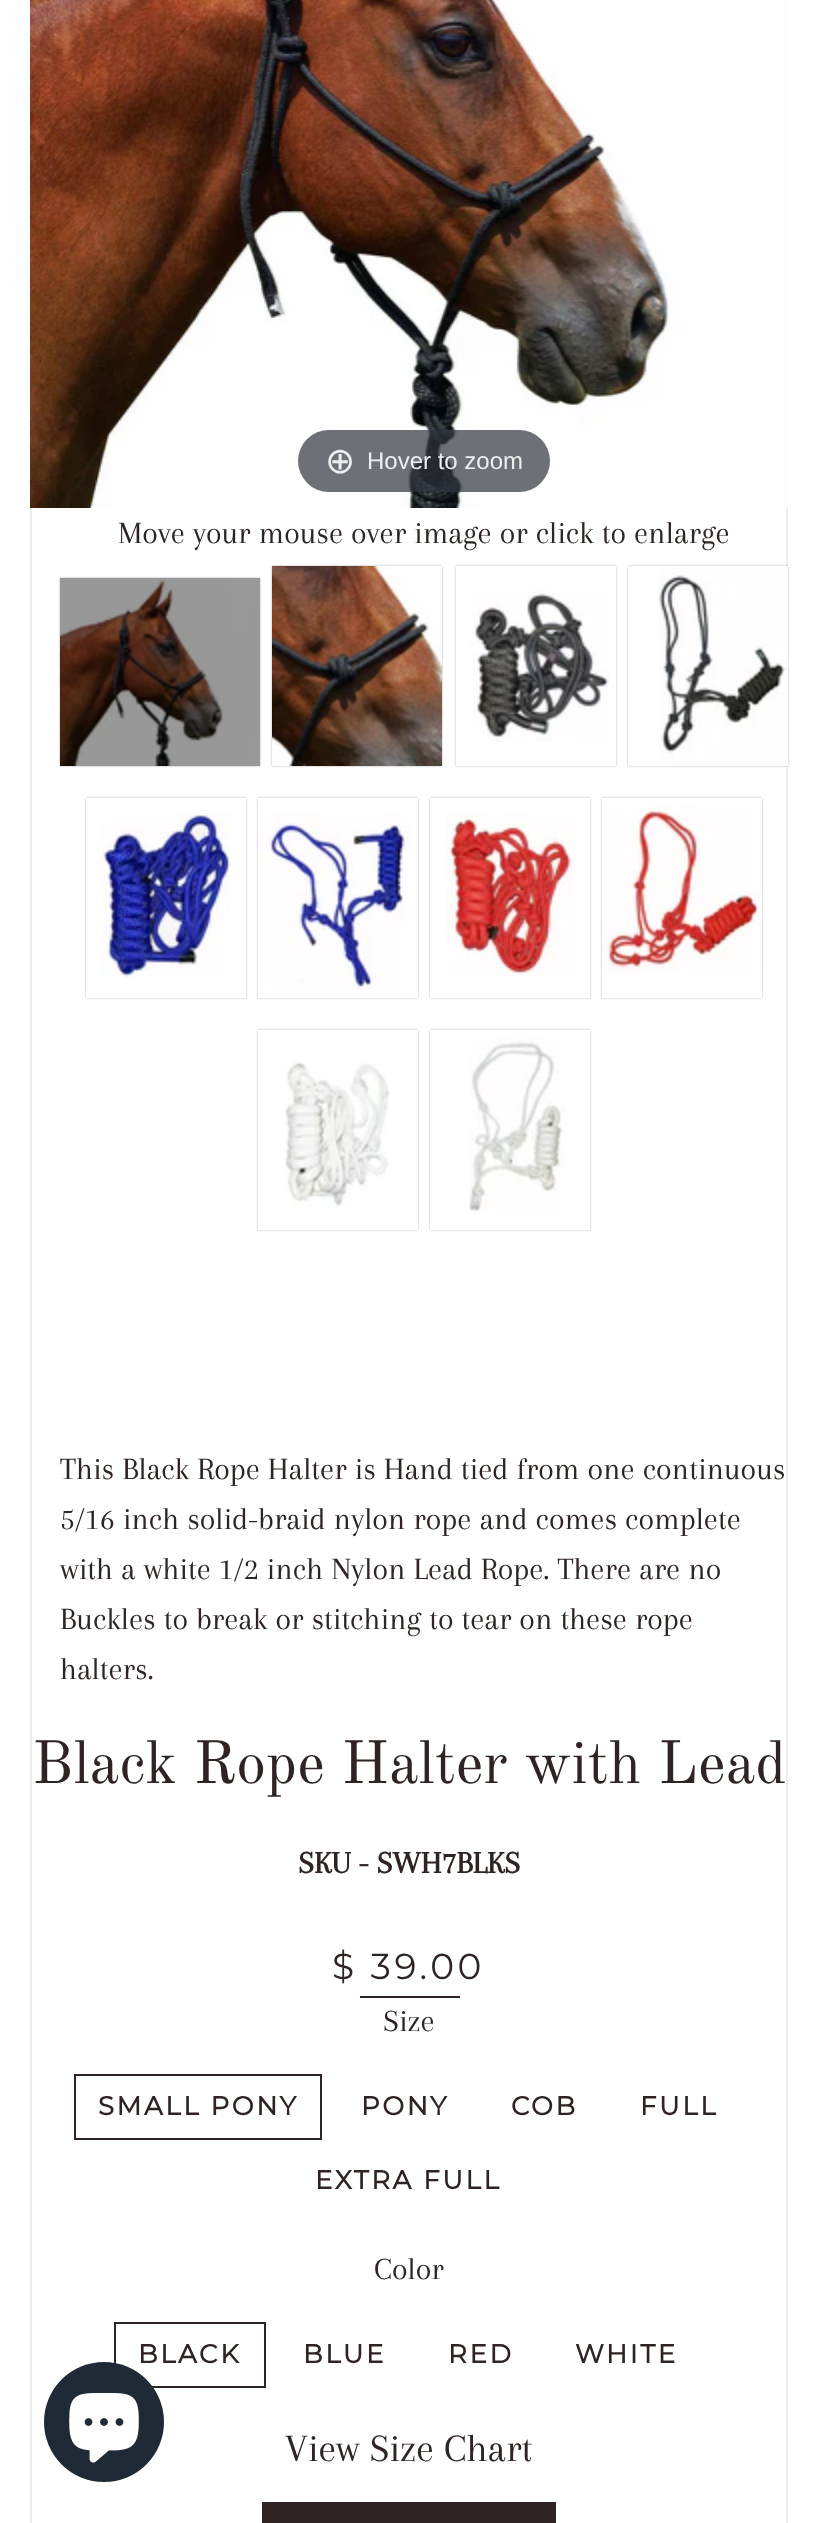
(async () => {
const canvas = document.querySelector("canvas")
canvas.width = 817
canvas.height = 2523
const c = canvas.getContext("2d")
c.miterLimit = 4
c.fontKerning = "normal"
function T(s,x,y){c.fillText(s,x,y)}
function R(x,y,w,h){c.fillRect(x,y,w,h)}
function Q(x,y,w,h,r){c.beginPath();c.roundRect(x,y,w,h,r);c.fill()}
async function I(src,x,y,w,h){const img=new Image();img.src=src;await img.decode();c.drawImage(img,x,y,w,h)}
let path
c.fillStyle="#fff"
R(0,0,817,2523)
c.strokeStyle="#ececec"
c.lineWidth=2
c.strokeRect(31,-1,756,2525)
await I("1.png",30,0,758,508)
c.fillStyle="#31333db3"
Q(298,430,252,62,31)
c.font="36px DejaVu Sans"
c.fillStyle="#eee"
T("⊕",325,473)
c.font="24px Liberation Sans"
T("Hover to zoom",367,469)
c.font="32px Arapey"
c.fillStyle="#2f2323"
T("Move your mouse over image or click to enlarge",118,543)
c.fillStyle="#0000004d"
c.filter="blur(1px)"
c.beginPath()
c.rect(60,578,200,188)
c.fill()
c.filter="none"
await I("2.png",60,578,200,188)
c.filter="blur(1px)"
c.beginPath()
c.rect(272,566,170,200)
c.fill()
c.filter="none"
await I("3.png",272,566,170,200)
c.save()
path = new Path2D("M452 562h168v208h-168zm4 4h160v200h-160z")
c.clip(path,"evenodd")
c.filter="blur(1px)"
c.beginPath()
c.rect(456,566,160,200)
c.fill()
c.filter="none"
c.restore()
await I("4.png",471,590,138,152)
c.save()
path = new Path2D("M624 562h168v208h-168zm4 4h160v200h-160z")
c.clip(path,"evenodd")
c.filter="blur(1px)"
c.beginPath()
c.rect(628,566,160,200)
c.fill()
c.filter="none"
c.restore()
await I("5.png",659,566,129,200)
c.save()
path = new Path2D("M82 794h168v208h-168zm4 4h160v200h-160z")
c.clip(path,"evenodd")
c.filter="blur(1px)"
c.beginPath()
c.rect(86,798,160,200)
c.fill()
c.filter="none"
c.restore()
await I("6.png",101,813,130,164)
c.save()
path = new Path2D("M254 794h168v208h-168zm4 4h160v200h-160z")
c.clip(path,"evenodd")
c.filter="blur(1px)"
c.beginPath()
c.rect(258,798,160,200)
c.fill()
c.filter="none"
c.restore()
await I("7.png",258,814,152,176)
c.save()
path = new Path2D("M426 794h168v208h-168zm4 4h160v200h-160z")
c.clip(path,"evenodd")
c.filter="blur(1px)"
c.beginPath()
c.rect(430,798,160,200)
c.fill()
c.filter="none"
c.restore()
await I("8.png",446,814,129,162)
c.save()
path = new Path2D("M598 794h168v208h-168zm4 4h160v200h-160z")
c.clip(path,"evenodd")
c.filter="blur(1px)"
c.beginPath()
c.rect(602,798,160,200)
c.fill()
c.filter="none"
c.restore()
await I("9.png",602,806,160,168)
c.save()
path = new Path2D("M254 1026h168v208h-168zm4 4h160v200h-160z")
c.clip(path,"evenodd")
c.filter="blur(1px)"
c.beginPath()
c.rect(258,1030,160,200)
c.fill()
c.filter="none"
c.restore()
await I("10.png",285,1062,105,145)
c.save()
path = new Path2D("M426 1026h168v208h-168zm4 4h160v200h-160z")
c.clip(path,"evenodd")
c.filter="blur(1px)"
c.beginPath()
c.rect(430,1030,160,200)
c.fill()
c.filter="none"
c.restore()
await I("11.png",469,1038,97,176)
c.fillStyle="#2f2323"
T("This Black Rope Halter is Hand tied from one continuous",60,1479)
T("5/16 inch solid-braid nylon rope and comes complete",60,1529)
T("with a white 1/2 inch Nylon Lead Rope. There are no",60,1579)
T("Buckles to break or stitching to tear on these rope",60,1629)
T("halters.",60,1679)
c.font="60px Old Standard TT"
T("Black Rope Halter with Lead",32,1783)
c.font="bold 32px Arapey"
T("SKU - SWH7BLKS",298,1873)
c.letterSpacing="3.5px"
c.font="100 36px Montserrat"
T("$ 39.00",332,1979)
R(360,1996,100,2)
c.letterSpacing="0px"
c.font="32px Arapey"
T("Size",383,2031)
c.strokeStyle="#2f2323"
c.strokeRect(75,2075,246,64)
c.letterSpacing="2.6px"
c.font="bold 26px Montserrat"
T("SMALL PONY",98,2115)
T("PONY",361,2115)
T("COB",511,2115)
T("FULL",640,2115)
T("EXTRA FULL",315,2189)
c.letterSpacing="0px"
c.font="32px Arapey"
T("Color",374,2279)
c.strokeRect(115,2323,150,64)
c.letterSpacing="2.6px"
c.font="bold 26px Montserrat"
T("BLACK",138,2363)
T("BLUE",303,2363)
T("RED",448,2363)
T("WHITE",575,2363)
c.letterSpacing="0px"
c.font="40px Arapey"
T("View Size Chart",285,2461)
R(262,2502,294,21)
c.fillStyle="#202a36"
c.beginPath()
c.arc(104,2422,60,0,7)
c.fill()
await I("12.png",69,2393,70,70)
})()
